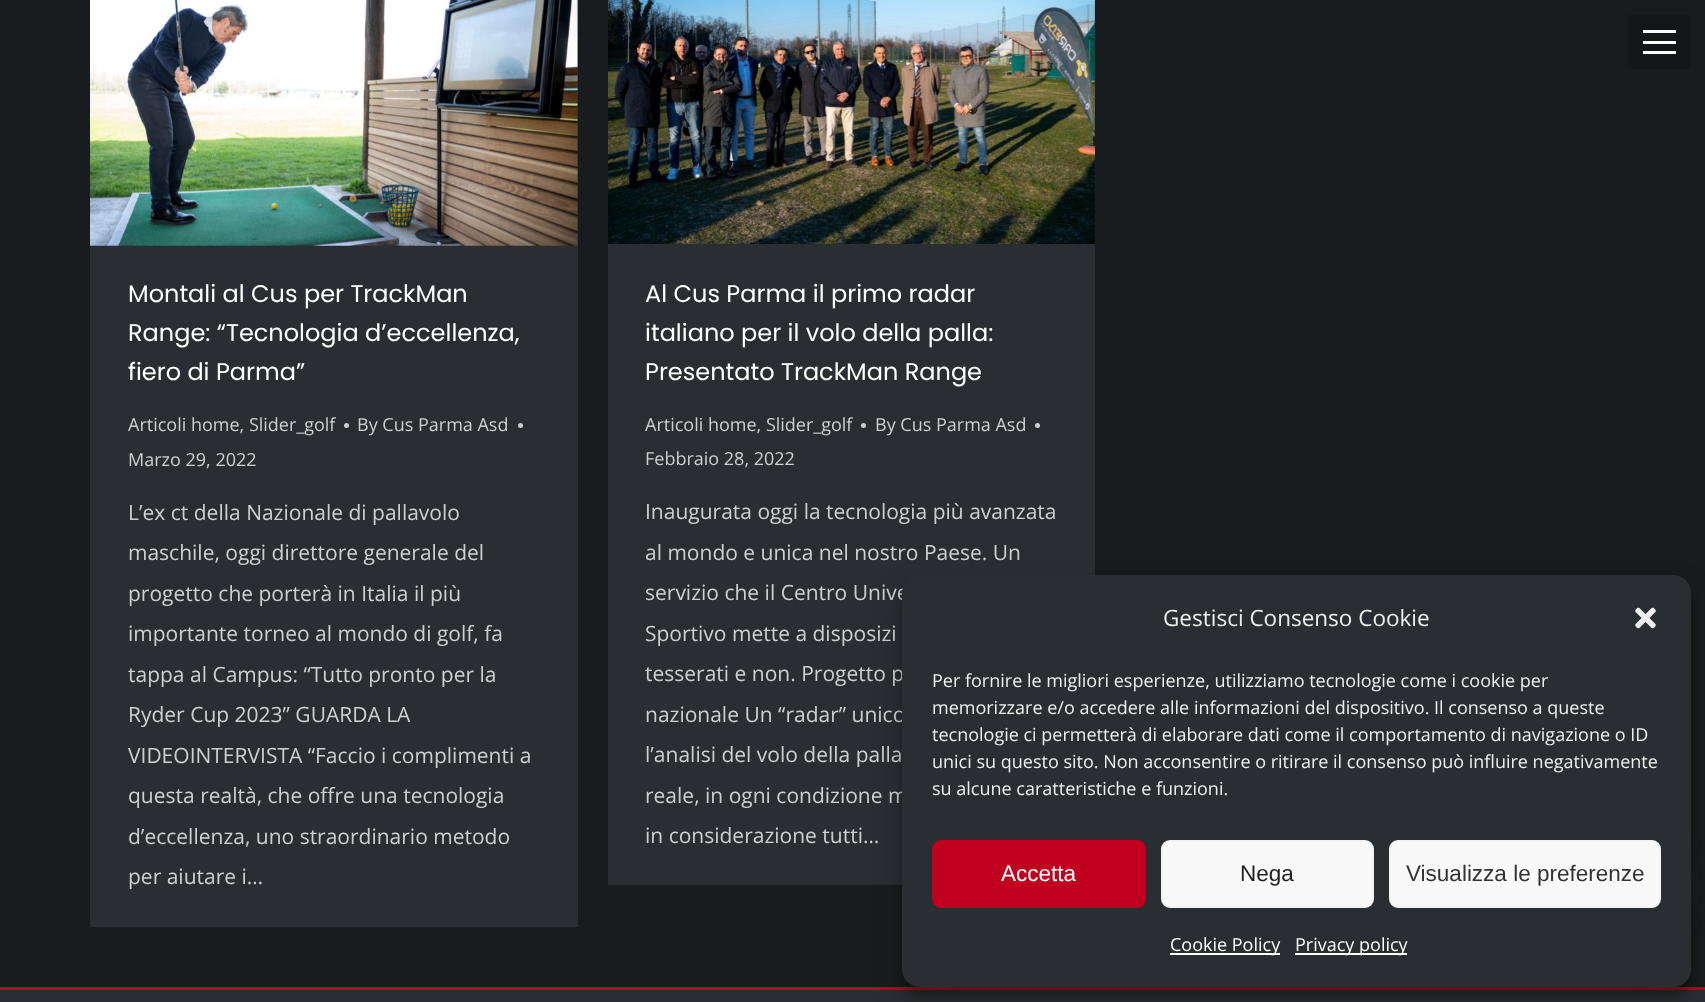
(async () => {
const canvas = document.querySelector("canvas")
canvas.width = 1705
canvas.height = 1002
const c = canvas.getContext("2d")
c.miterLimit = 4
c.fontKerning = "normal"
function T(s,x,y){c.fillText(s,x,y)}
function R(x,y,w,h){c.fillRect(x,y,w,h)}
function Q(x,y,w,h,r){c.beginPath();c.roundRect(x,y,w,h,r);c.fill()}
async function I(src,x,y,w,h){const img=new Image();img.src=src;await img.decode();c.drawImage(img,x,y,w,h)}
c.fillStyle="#2a2d32"
R(0,0,1705,1002)
c.fillStyle="#191c1f"
R(0,0,1705,987)
c.fillStyle="#141619"
R(1628,15,63,54)
c.fillStyle="#fff"
R(1643,30,33,3)
R(1643,41,33,3)
R(1643,51,33,3)
c.fillStyle="#c1001f"
R(0,987,1705,3)
c.fillStyle="#2a2d32"
R(90,0,488,927)
await I("1.png",90,0,488,246)
c.font="24px Poppins"
c.fillStyle="#fff"
T("Montali al Cus per TrackMan",128,302)
T("Range: “Tecnologia d’eccellenza,",128,341)
T("fiero di Parma”",128,380)
c.font="18px Open Sans"
c.fillStyle="#cecfd0"
T("Articoli home, Slider_golf",128,431)
c.beginPath()
c.arc(346.5,425.5,2.5,0,7)
c.fill()
T("By Cus Parma Asd",357,431)
c.beginPath()
c.arc(520.5,425.5,2.5,0,7)
c.fill()
T("Marzo 29, 2022",128,466)
c.font="21px Open Sans"
T("L’ex ct della Nazionale di pallavolo",128,520)
T("maschile, oggi direttore generale del",128,560)
T("progetto che porterà in Italia il più",128,601)
T("importante torneo al mondo di golf, fa",128,641)
T("tappa al Campus: “Tutto pronto per la",128,682)
T("Ryder Cup 2023” GUARDA LA",128,722)
T("VIDEOINTERVISTA “Faccio i complimenti a",128,763)
T("questa realtà, che offre una tecnologia",128,803)
T("d’eccellenza, uno straordinario metodo",128,844)
T("per aiutare i…",128,884)
c.fillStyle="#2a2d32"
R(608,0,487,885)
await I("2.png",608,0,487,244)
c.font="24px Poppins"
c.fillStyle="#fff"
T("Al Cus Parma il primo radar",645,302)
T("italiano per il volo della palla:",645,341)
T("Presentato TrackMan Range",645,380)
c.font="18px Open Sans"
c.fillStyle="#cecfd0"
T("Articoli home, Slider_golf",645,431)
c.beginPath()
c.arc(863.5,425.5,2.5,0,7)
c.fill()
T("By Cus Parma Asd",875,431)
c.beginPath()
c.arc(1037.5,425.5,2.5,0,7)
c.fill()
T("Febbraio 28, 2022",645,465)
c.font="21px Open Sans"
T("Inaugurata oggi la tecnologia più avanzata",645,519)
T("al mondo e unica nel nostro Paese. Un",645,560)
T("servizio che il Centro Unive",645,600)
T("Sportivo mette a disposizi",645,641)
T("tesserati e non. Progetto p",645,681)
T("nazionale Un “radar” unico",645,722)
T("l’analisi del volo della palla",645,762)
T("reale, in ogni condizione m",645,803)
T("in considerazione tutti…",645,843)
c.fillStyle="#0000003b"
c.filter="blur(4.5px)"
c.beginPath()
c.roundRect(902,584,789,412,18)
c.fill()
c.filter="none"
c.fillStyle="#00000030"
c.filter="blur(15px)"
c.beginPath()
c.roundRect(902,590,789,412,18)
c.fill()
c.filter="none"
c.fillStyle="#49687e29"
c.filter="blur(18px)"
c.beginPath()
c.roundRect(1598,845,81,81,40.5)
c.fill()
c.filter="none"
c.fillStyle="#2a2d32"
Q(902,575,789,412,18)
c.font="22.5px Open Sans"
c.fillStyle="#eee"
T("Gestisci Consenso Cookie",1163,626)
await I("3.png",1635,607,21,22)
c.font="18px Open Sans"
T("Per fornire le migliori esperienze, utilizziamo tecnologie come i cookie per",932,687)
T("memorizzare e/o accedere alle informazioni del dispositivo. Il consenso a queste",932,714)
T("tecnologie ci permetterà di elaborare dati come il comportamento di navigazione o ID",932,741)
T("unici su questo sito. Non acconsentire o ritirare il consenso può influire negativamente",932,768)
T("su alcune caratteristiche e funzioni.",932,795)
c.fillStyle="#c1001f"
c.beginPath()
c.roundRect(933,841,212,66,8)
c.fill()
c.strokeStyle="#c1001f"
c.lineWidth=2
c.stroke()
c.font="22.5px Liberation Sans"
c.fillStyle="#fff"
T("Accetta",1001,881)
c.fillStyle="#f9f9f9"
c.beginPath()
c.roundRect(1162,841,211,66,8)
c.fill()
c.strokeStyle="#f2f2f2"
c.stroke()
c.fillStyle="#222"
T("Nega",1240,881)
c.fillStyle="#f9f9f9"
c.beginPath()
c.roundRect(1390,841,270,66,8)
c.fill()
c.stroke()
c.fillStyle="#333"
T("Visualizza le preferenze",1406,881)
c.fillStyle="#fff"
R(1170,953,110,2)
c.font="18px Open Sans"
T("Cookie Policy",1170,951)
R(1295,953,112,2)
T("Privacy policy",1295,951)
})()
